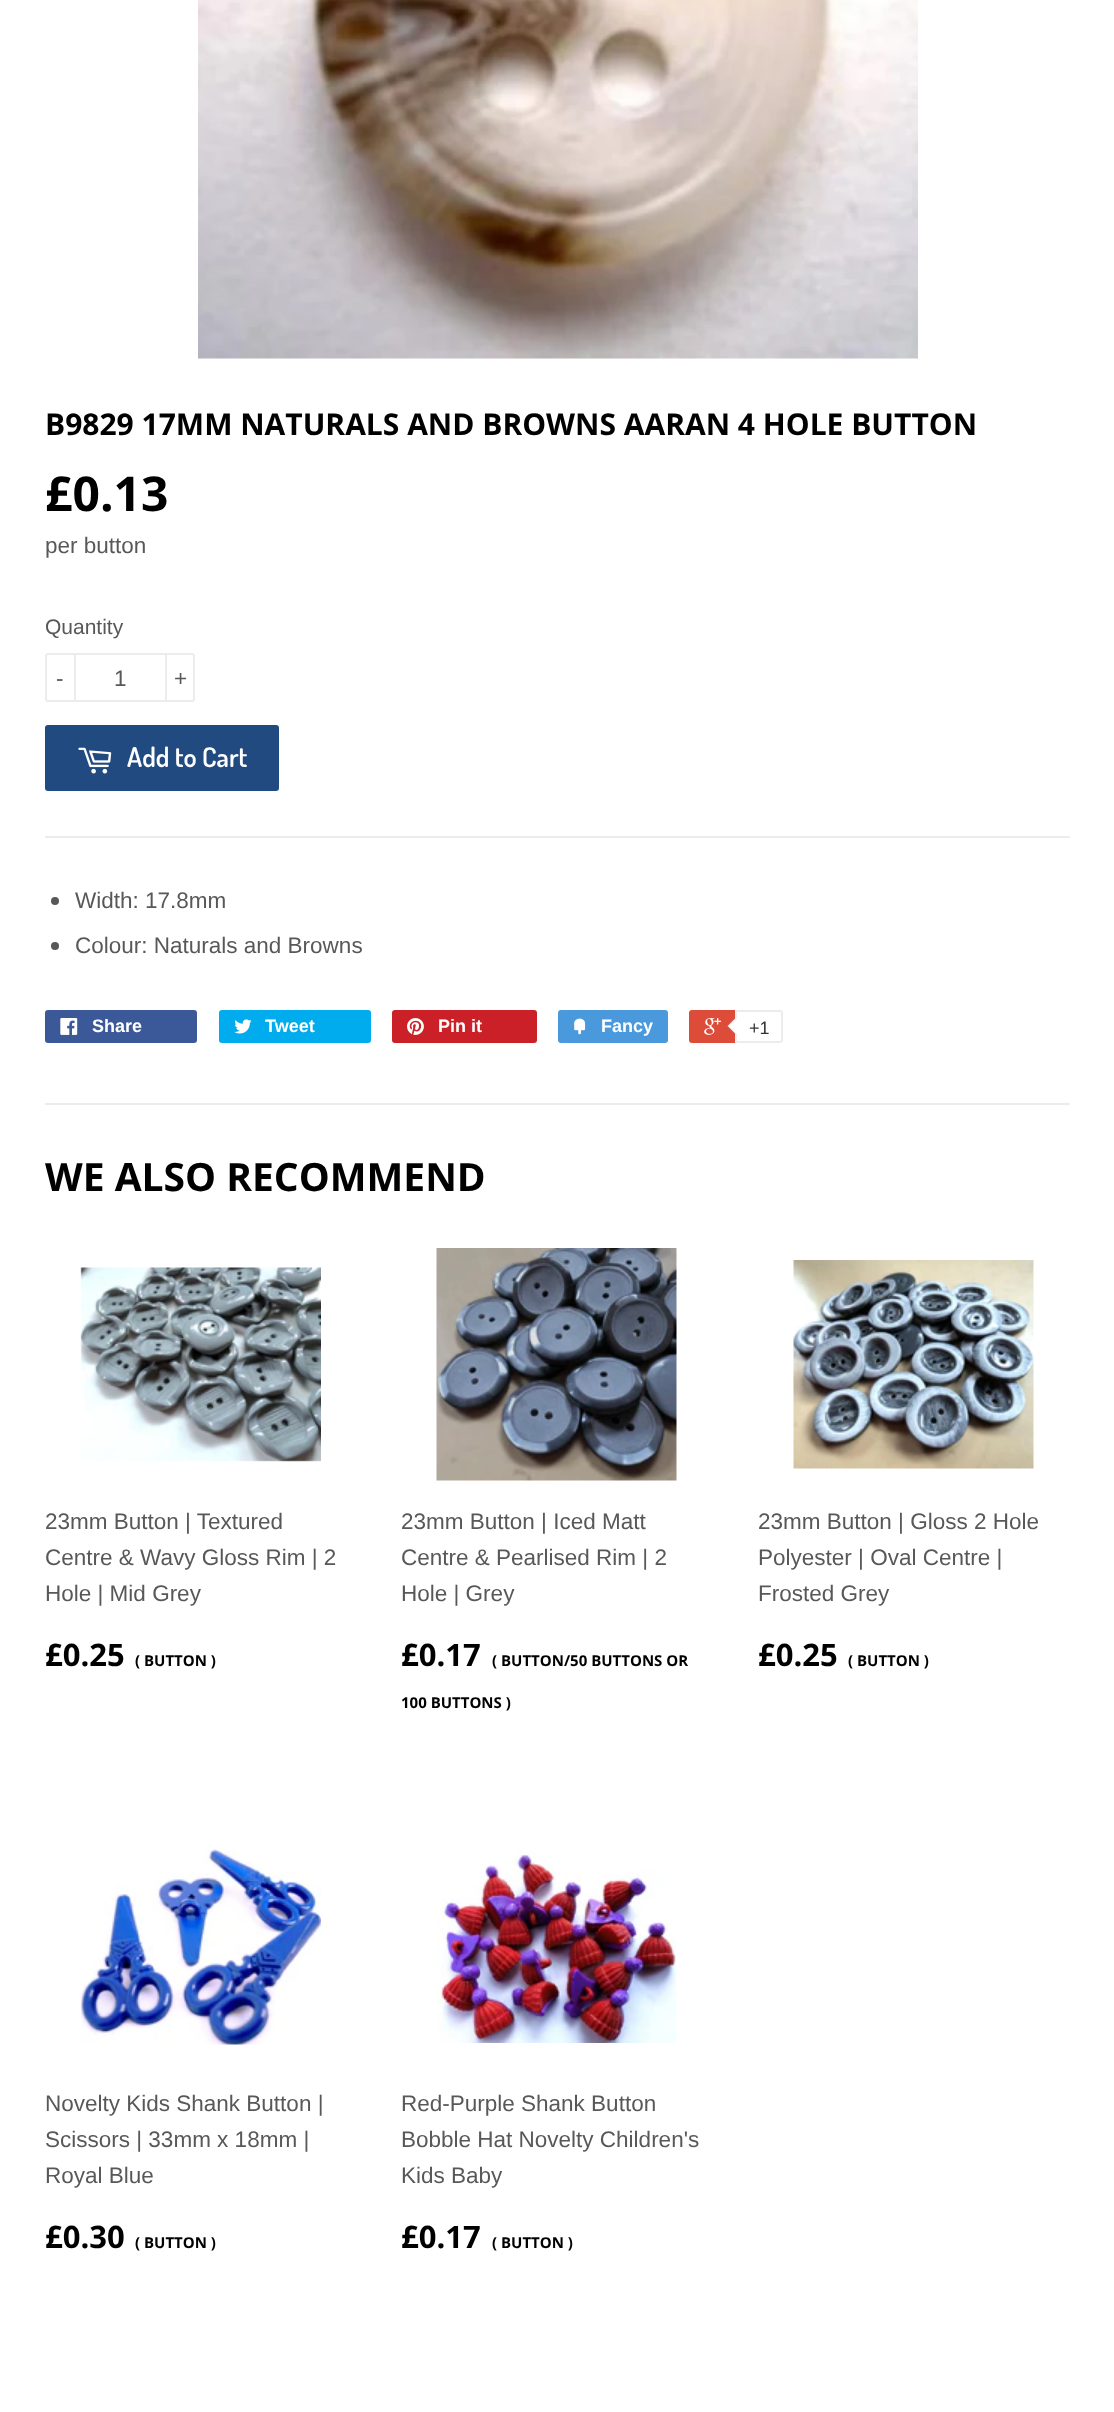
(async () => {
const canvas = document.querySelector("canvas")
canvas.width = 1114
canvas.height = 2412
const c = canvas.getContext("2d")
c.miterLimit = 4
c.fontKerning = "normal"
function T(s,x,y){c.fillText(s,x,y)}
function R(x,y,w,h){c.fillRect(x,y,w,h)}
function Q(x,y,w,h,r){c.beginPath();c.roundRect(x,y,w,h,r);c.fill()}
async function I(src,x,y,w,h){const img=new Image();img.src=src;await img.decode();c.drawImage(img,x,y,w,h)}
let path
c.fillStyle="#fff"
R(0,0,1114,2412)
await I("1.png",198,0,720,359)
c.font="bold 30px Open Sans"
c.fillStyle="#000"
T("B9829 17MM NATURALS AND BROWNS AARAN 4 HOLE BUTTON",45,435)
c.font="bold 48px Open Sans"
T("£0.13",45,511)
c.font="22.5px Liberation Sans"
c.fillStyle="#585858"
T("per button",45,553)
c.font="21px Liberation Sans"
T("Quantity",45,634)
c.beginPath()
c.roundRect(46,654,148,47,2)
c.strokeStyle="#ececec"
c.lineWidth=2
c.stroke()
c.fillStyle="#ececec"
R(74,653,2,49)
c.font="22.5px Liberation Sans"
c.fillStyle="#585858"
T("-",56,686)
T("1",114,686)
c.fillStyle="#ececec"
R(165,653,2,49)
c.fillStyle="#585858"
T("+",174,686)
c.fillStyle="#204a80"
Q(45,725,234,66,3)
await I("2.png",78,747,34,27)
c.font="600 27px Dosis"
c.fillStyle="#fff"
T("Add to Cart",127,767)
c.fillStyle="#ececec"
R(45,836,1025,2)
c.fillStyle="#585858"
c.beginPath()
c.arc(55,901,4,0,7)
c.fill()
c.font="22.5px Liberation Sans"
T("Width: 17.8mm",75,908)
c.beginPath()
c.arc(55,946,4,0,7)
c.fill()
T("Colour: Naturals and Browns",75,953)
c.fillStyle="#3b5998"
Q(45,1010,152,33,3)
await I("3.png",60,1018,18,17)
c.font="bold 18px Liberation Sans"
c.fillStyle="#fff"
T("Share",92,1032)
c.fillStyle="#00aced"
Q(219,1010,152,33,3)
await I("4.png",234,1019,18,15)
c.fillStyle="#fff"
T("Tweet",265,1032)
c.fillStyle="#cb2027"
Q(392,1010,145,33,3)
await I("5.png",407,1018,17,17)
c.fillStyle="#fff"
T("Pin it",438,1032)
c.fillStyle="#4999dc"
Q(558,1010,110,33,3)
await I("6.png",574,1018,12,17)
c.fillStyle="#fff"
T("Fancy",601,1032)
c.fillStyle="#dd4b39"
Q(689,1010,91,33,3)
await I("7.png",704,1018,17,17)
c.fillStyle="#fff"
c.beginPath()
c.roundRect(736,1011,46,31,[0,2,2,0])
c.fill()
c.stroke()
c.fillStyle="#ececec"
path = new Path2D("M736.5 1017v18l-9-9z")
c.fill(path)
c.fillStyle="#fff"
path = new Path2D("M738 1017v18l-9-9z")
c.fill(path)
c.font="18px Liberation Sans"
c.fillStyle="#333"
T("+1",749,1034)
c.fillStyle="#ececec"
R(45,1103,1025,2)
c.font="bold 39px Open Sans"
c.fillStyle="#000"
T("WE ALSO RECOMMEND",45,1191)
await I("8.png",80,1267,241,195)
c.font="22.5px Liberation Sans"
c.fillStyle="#585858"
T("23mm Button | Textured",45,1529)
T("Centre & Wavy Gloss Rim | 2",45,1565)
T("Hole | Mid Grey",45,1601)
c.font="bold 31px Open Sans"
c.fillStyle="#000"
T("£0.25",45,1666)
c.font="bold 15px Open Sans"
T("( BUTTON )",135,1666)
await I("9.png",436,1248,241,233)
c.font="22.5px Liberation Sans"
c.fillStyle="#585858"
T("23mm Button | Iced Matt",401,1529)
T("Centre & Pearlised Rim | 2",401,1565)
T("Hole | Grey",401,1601)
c.font="bold 31px Open Sans"
c.fillStyle="#000"
T("£0.17",401,1666)
c.font="bold 15px Open Sans"
T("( BUTTON/50 BUTTONS OR",492,1666)
T("100 BUTTONS )",401,1708)
await I("10.png",793,1260,241,209)
c.font="22.5px Liberation Sans"
c.fillStyle="#585858"
T("23mm Button | Gloss 2 Hole",758,1529)
T("Polyester | Oval Centre |",758,1565)
T("Frosted Grey",758,1601)
c.font="bold 31px Open Sans"
c.fillStyle="#000"
T("£0.25",758,1666)
c.font="bold 15px Open Sans"
T("( BUTTON )",848,1666)
await I("11.png",80,1849,241,196)
c.font="22.5px Liberation Sans"
c.fillStyle="#585858"
T("Novelty Kids Shank Button |",45,2111)
T("Scissors | 33mm x 18mm |",45,2147)
T("Royal Blue",45,2183)
c.font="bold 31px Open Sans"
c.fillStyle="#000"
T("£0.30",45,2248)
c.font="bold 15px Open Sans"
T("( BUTTON )",135,2248)
await I("12.png",436,1851,241,192)
c.font="22.5px Liberation Sans"
c.fillStyle="#585858"
T("Red-Purple Shank Button",401,2111)
T("Bobble Hat Novelty Children's",401,2147)
T("Kids Baby",401,2183)
c.font="bold 31px Open Sans"
c.fillStyle="#000"
T("£0.17",401,2248)
c.font="bold 15px Open Sans"
T("( BUTTON )",492,2248)
})()
